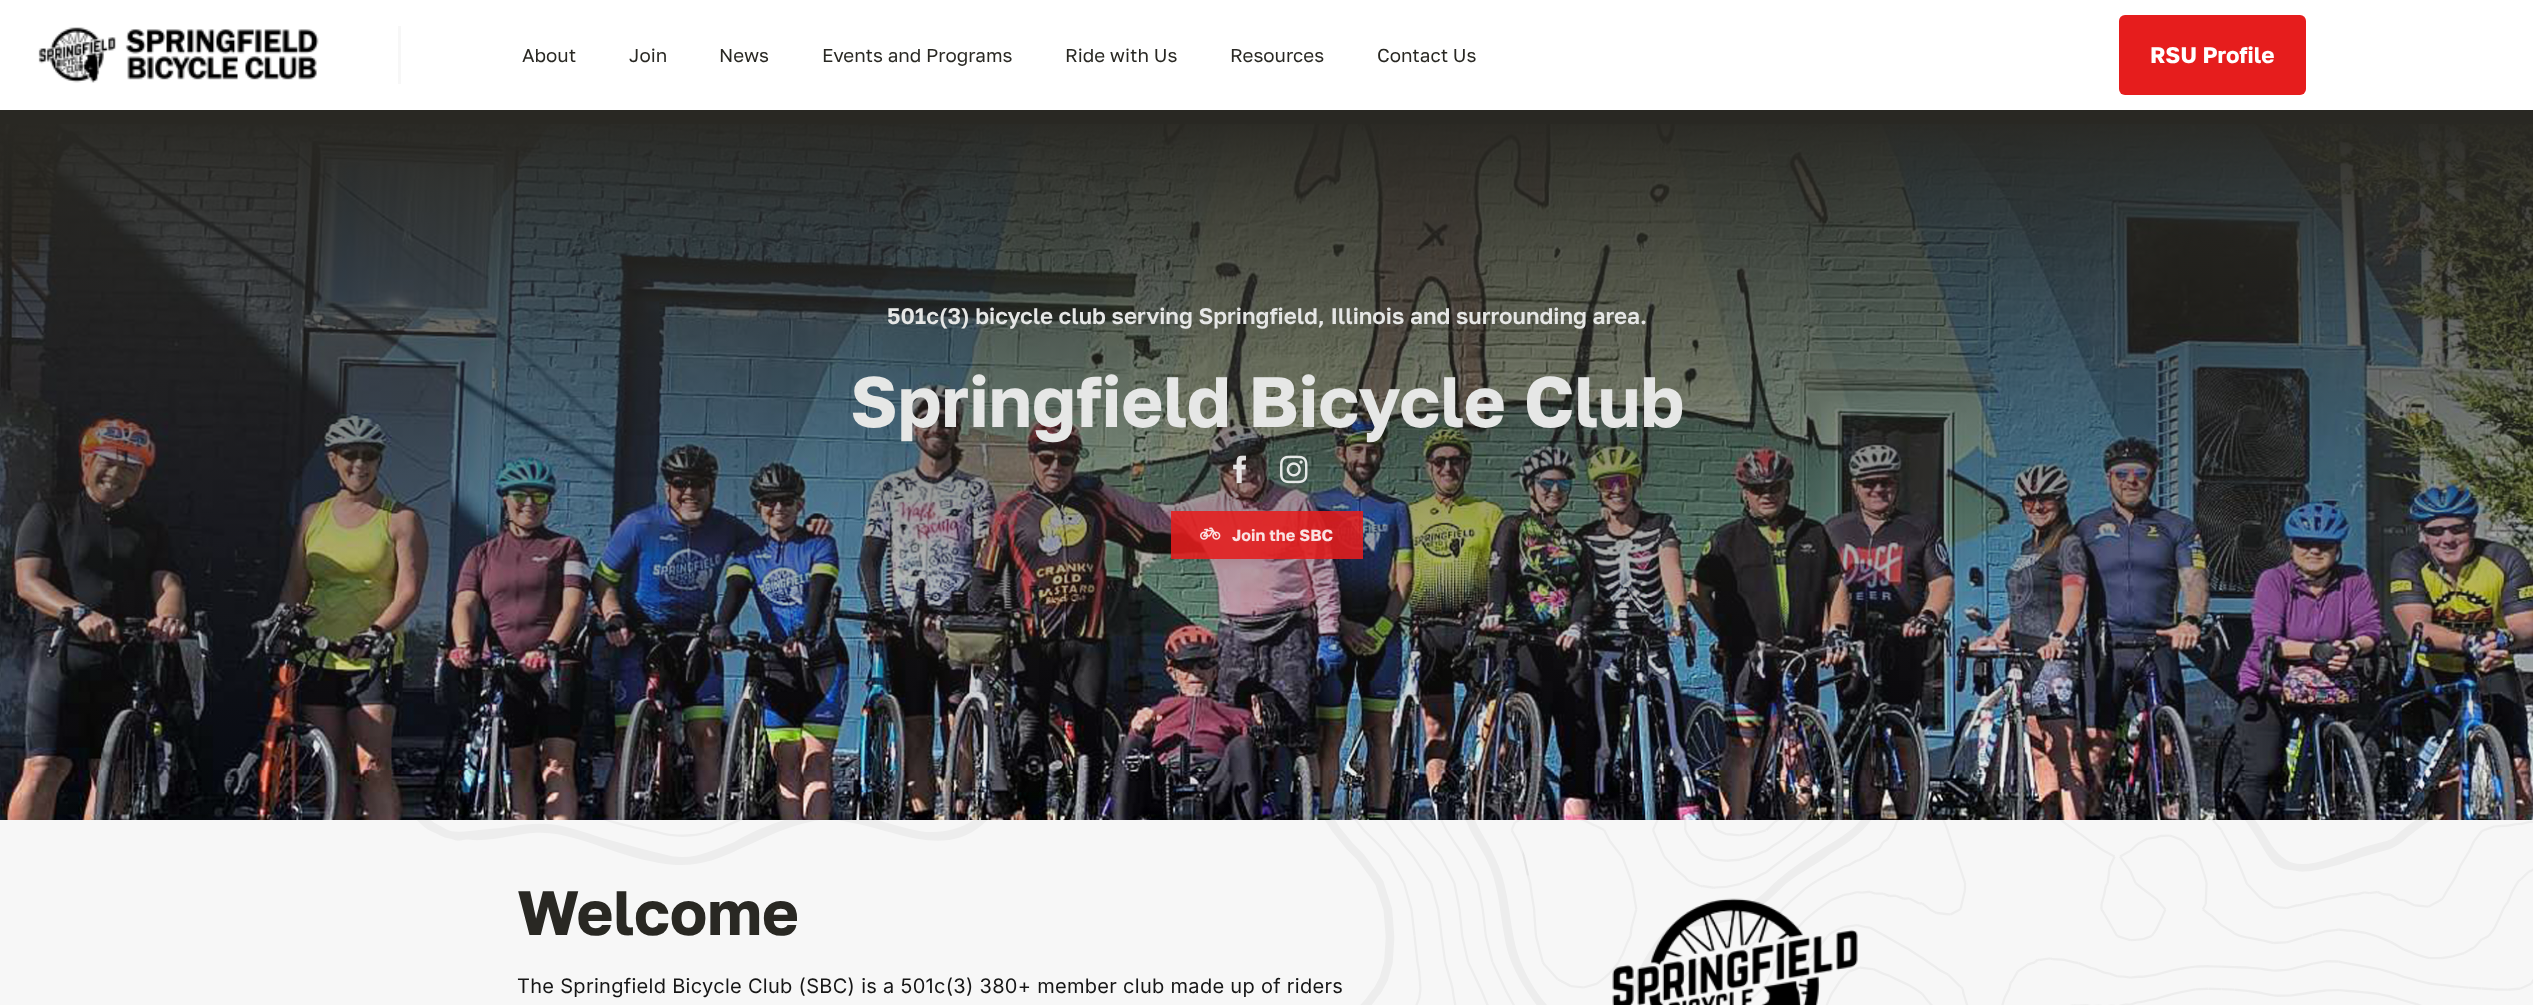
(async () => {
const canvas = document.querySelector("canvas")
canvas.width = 2533
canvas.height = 1005
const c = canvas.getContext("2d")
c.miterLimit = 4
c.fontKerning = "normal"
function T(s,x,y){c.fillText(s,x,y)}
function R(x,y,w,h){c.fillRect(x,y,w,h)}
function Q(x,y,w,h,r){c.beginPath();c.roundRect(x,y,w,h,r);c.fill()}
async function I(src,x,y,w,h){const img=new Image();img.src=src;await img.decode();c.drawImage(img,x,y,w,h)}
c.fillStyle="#fff"
R(0,0,2533,1005)
c.fillStyle="#f7f7f7"
R(398,26,3,58)
await I("1.png",38,27,281,56)
c.font="18.75px Golos Text"
c.fillStyle="#292823"
T("About",522,62)
T("Join",629,62)
T("News",719,62)
T("Events and Programs",822,62)
T("Ride with Us",1065,62)
T("Resources",1230,62)
T("Contact Us",1377,62)
c.fillStyle="#e61d1d"
Q(2119,15,187,80,6)
c.font="bold 22.5px Golos Text"
c.fillStyle="#fff"
T("RSU Profile",2150,63)
c.fillStyle="#292823"
R(0,110,2533,14)
await I("2.png",0,124,2533,696)
c.font="600 22.5px Golos Text"
c.fillStyle="#e6e7e6"
T("501c(3) bicycle club serving Springfield, Illinois and surrounding area.",887,324)
c.font="bold 71.25px Golos Text"
T("Springfield Bicycle Club",850,427)
await I("3.png",1233,455,13,29)
await I("4.png",1280,455,28,29)
c.fillStyle="#e61d1dde"
R(1171,511,192,48)
await I("5.png",1200,527,21,13)
c.font="bold 16.25px Golos Text"
c.fillStyle="#fae2e2"
T("Join the SBC",1232,541)
c.fillStyle="#f7f7f7"
R(0,820,2533,185)
await I("6.png",417,820,2116,185)
c.font="bold 62.5px Golos Text"
c.fillStyle="#292823"
T("Welcome",517,935)
c.letterSpacing="0.3px"
c.font="20px Inter"
c.fillStyle="#161616"
T("The Springfield Bicycle Club (SBC) is a 501c(3) 380+ member club made up of riders",517,993)
await I("7.png",1612,898,246,107)
})()
